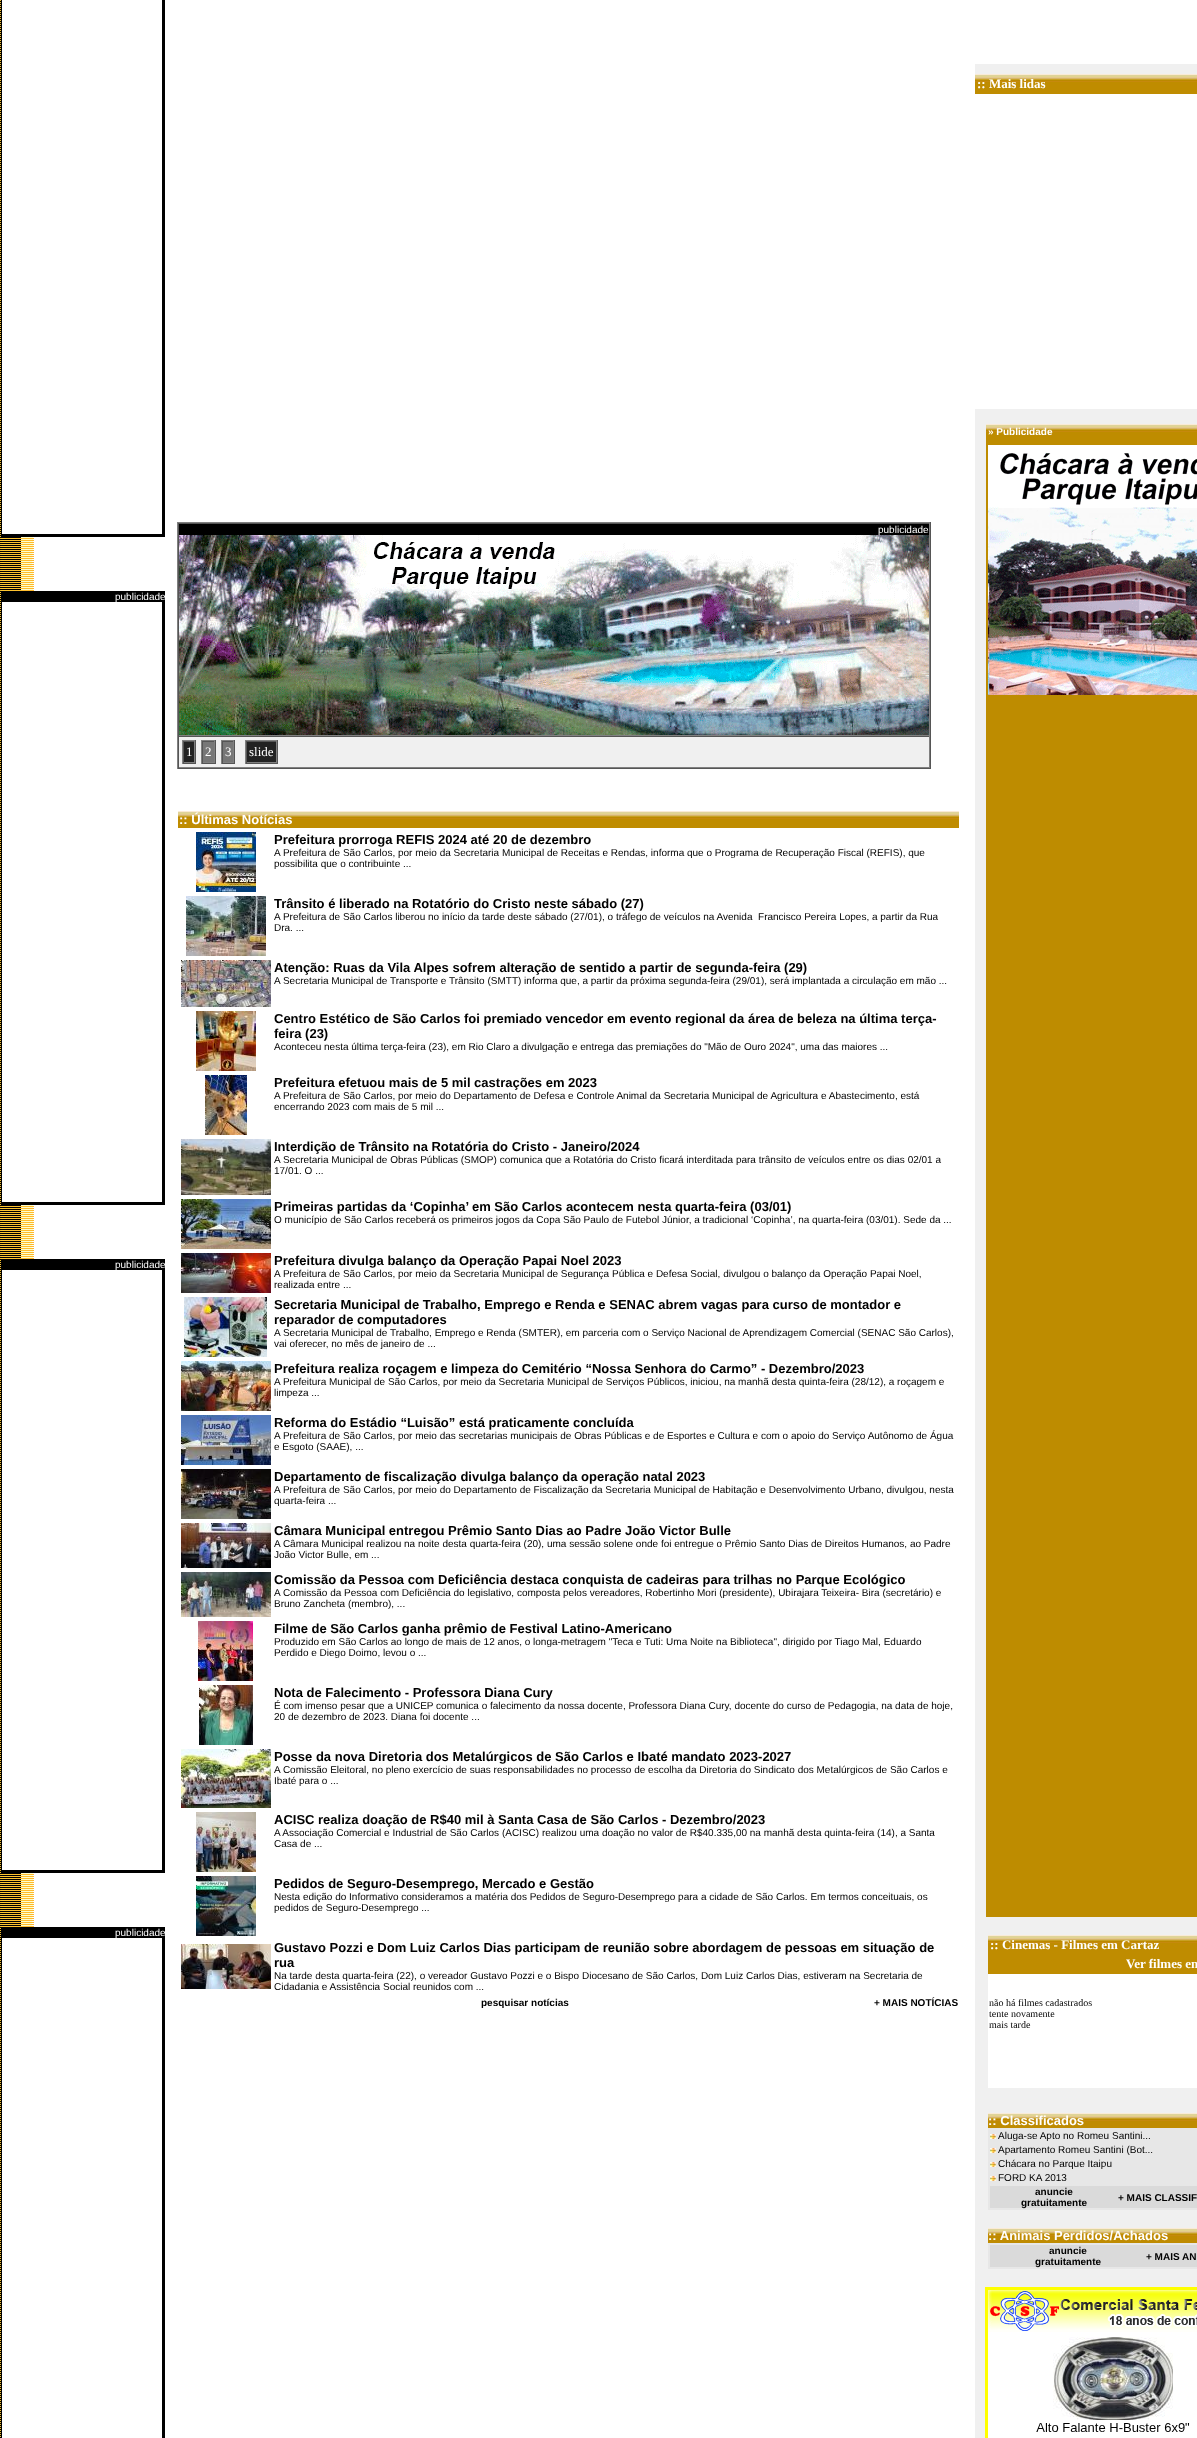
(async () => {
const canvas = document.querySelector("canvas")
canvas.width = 1197
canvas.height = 2438
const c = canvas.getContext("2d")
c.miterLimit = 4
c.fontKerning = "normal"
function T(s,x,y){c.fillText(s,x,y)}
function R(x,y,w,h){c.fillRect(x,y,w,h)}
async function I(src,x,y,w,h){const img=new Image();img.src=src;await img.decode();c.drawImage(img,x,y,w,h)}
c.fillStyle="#fff"
R(0,0,1197,2438)
await I("1.png",0,0,34,2438)
c.fillStyle="#000"
R(1,0,1,534)
c.fillStyle="#fff"
R(2,0,32,534)
c.fillStyle="#000"
R(162,0,3,534)
R(1,534,164,3)
R(1,591,164,11)
R(162,602,3,600)
c.font="10px Liberation Sans"
c.fillStyle="#fff"
T("publicidade",115,600)
c.fillStyle="#000"
R(1,602,1,600)
c.fillStyle="#fff"
R(2,602,32,600)
c.fillStyle="#000"
R(1,1202,164,3)
R(1,1259,164,11)
R(162,1270,3,600)
c.fillStyle="#fff"
T("publicidade",115,1268)
c.fillStyle="#000"
R(1,1270,1,600)
c.fillStyle="#fff"
R(2,1270,32,600)
c.fillStyle="#000"
R(1,1870,164,3)
R(1,1927,164,11)
R(162,1938,3,500)
c.fillStyle="#fff"
T("publicidade",115,1936)
c.fillStyle="#000"
R(1,1938,1,500)
c.fillStyle="#fff"
R(2,1938,32,500)
c.fillStyle="#f0f0f0"
R(179,737,750,30)
c.fillStyle="#808080"
R(177,522,754,1)
c.fillStyle="#555"
R(930,522,1,247)
R(177,768,754,1)
c.fillStyle="#808080"
R(177,522,1,247)
c.fillStyle="#555"
R(178,523,752,1)
c.fillStyle="#808080"
R(929,523,1,213)
R(178,735,752,1)
c.fillStyle="#555"
R(178,523,1,213)
c.fillStyle="#000"
R(179,524,750,11)
c.fillStyle="#fff"
T("publicidade",878,533)
await I("2.png",179,535,750,200)
c.fillStyle="#555"
R(178,736,752,1)
c.fillStyle="#808080"
R(929,736,1,32)
R(178,767,752,1)
c.fillStyle="#555"
R(178,736,1,32)
c.fillStyle="#808080"
R(182,740,14,1)
c.fillStyle="#555"
R(195,740,1,24)
R(182,763,14,1)
c.fillStyle="#808080"
R(182,740,1,24)
c.fillStyle="#222"
R(184,742,10,20)
c.fillStyle="#555"
R(183,741,12,1)
c.fillStyle="#808080"
R(194,741,1,22)
R(183,762,12,1)
c.fillStyle="#555"
R(183,741,1,22)
c.font="13px Liberation Serif"
c.fillStyle="#fff"
T("1",186,756)
c.fillStyle="#808080"
R(201,740,15,1)
c.fillStyle="#555"
R(215,740,1,24)
R(201,763,15,1)
c.fillStyle="#808080"
R(201,740,1,24)
c.fillStyle="#777"
R(203,742,11,20)
c.fillStyle="#555"
R(202,741,13,1)
c.fillStyle="#808080"
R(214,741,1,22)
R(202,762,13,1)
c.fillStyle="#555"
R(202,741,1,22)
c.fillStyle="#fff"
T("2",205,756)
c.fillStyle="#808080"
R(221,740,14,1)
c.fillStyle="#555"
R(234,740,1,24)
R(221,763,14,1)
c.fillStyle="#808080"
R(221,740,1,24)
c.fillStyle="#777"
R(223,742,10,20)
c.fillStyle="#555"
R(222,741,12,1)
c.fillStyle="#808080"
R(233,741,1,22)
R(222,762,12,1)
c.fillStyle="#555"
R(222,741,1,22)
c.fillStyle="#fff"
T("3",225,756)
c.fillStyle="#808080"
R(245,740,33,1)
c.fillStyle="#555"
R(277,740,1,24)
R(245,763,33,1)
c.fillStyle="#808080"
R(245,740,1,24)
c.fillStyle="#222"
R(247,742,29,20)
c.fillStyle="#555"
R(246,741,31,1)
c.fillStyle="#808080"
R(276,741,1,22)
R(246,762,31,1)
c.fillStyle="#555"
R(246,741,1,22)
c.fillStyle="#fff"
T("slide",249,756)
c.fillStyle="#bf8c00"
R(178,819,781,9)
await I("3.png",178,811,781,8)
c.font="bold 13px Liberation Sans"
c.fillStyle="#fff"
T(":: Últimas Notícias",179,824)
await I("4.png",196,832,60,60)
c.fillStyle="#000"
T("Prefeitura prorroga REFIS 2024 até 20 de dezembro",274,844)
c.font="10px Liberation Sans"
T("A Prefeitura de São Carlos, por meio da Secretaria Municipal de Receitas e Rendas, informa que o Programa de Recuperação Fiscal (REFIS), que",274,856)
T("possibilita que o contribuinte ...",274,867)
await I("5.png",186,896,80,60)
c.font="bold 13px Liberation Sans"
T("Trânsito é liberado na Rotatório do Cristo neste sábado (27)",274,908)
c.font="10px Liberation Sans"
T("A Prefeitura de São Carlos liberou no início da tarde deste sábado (27/01), o tráfego de veículos na Avenida  Francisco Pereira Lopes, a partir da Rua",274,920)
T("Dra. ...",274,931)
await I("6.png",181,960,90,47)
c.font="bold 13px Liberation Sans"
T("Atenção: Ruas da Vila Alpes sofrem alteração de sentido a partir de segunda-feira (29)",274,972)
c.font="10px Liberation Sans"
T("A Secretaria Municipal de Transporte e Trânsito (SMTT) informa que, a partir da próxima segunda-feira (29/01), será implantada a circulação em mão ...",274,984)
await I("7.png",196,1011,60,60)
c.font="bold 13px Liberation Sans"
T("Centro Estético de São Carlos foi premiado vencedor em evento regional da área de beleza na última terça-",274,1023)
T("feira (23)",274,1038)
c.font="10px Liberation Sans"
T("Aconteceu nesta última terça-feira (23), em Rio Claro a divulgação e entrega das premiações do \"Mão de Ouro 2024\", uma das maiores ...",274,1050)
await I("8.png",205,1075,42,60)
c.font="bold 13px Liberation Sans"
T("Prefeitura efetuou mais de 5 mil castrações em 2023",274,1087)
c.font="10px Liberation Sans"
T("A Prefeitura de São Carlos, por meio do Departamento de Defesa e Controle Animal da Secretaria Municipal de Agricultura e Abastecimento, está",274,1099)
T("encerrando 2023 com mais de 5 mil ...",274,1110)
await I("9.png",181,1139,90,56)
c.font="bold 13px Liberation Sans"
T("Interdição de Trânsito na Rotatória do Cristo - Janeiro/2024",274,1151)
c.font="10px Liberation Sans"
T("A Secretaria Municipal de Obras Públicas (SMOP) comunica que a Rotatória do Cristo ficará interditada para trânsito de veículos entre os dias 02/01 a",274,1163)
T("17/01. O ...",274,1174)
await I("10.png",181,1199,90,50)
c.font="bold 13px Liberation Sans"
T("Primeiras partidas da ‘Copinha’ em São Carlos acontecem nesta quarta-feira (03/01)",274,1211)
c.font="10px Liberation Sans"
T("O município de São Carlos receberá os primeiros jogos da Copa São Paulo de Futebol Júnior, a tradicional ‘Copinha’, na quarta-feira (03/01). Sede da ...",274,1223)
await I("11.png",181,1253,90,40)
c.font="bold 13px Liberation Sans"
T("Prefeitura divulga balanço da Operação Papai Noel 2023",274,1265)
c.font="10px Liberation Sans"
T("A Prefeitura de São Carlos, por meio da Secretaria Municipal de Segurança Pública e Defesa Social, divulgou o balanço da Operação Papai Noel,",274,1277)
T("realizada entre ...",274,1288)
await I("12.png",184,1297,83,60)
c.font="bold 13px Liberation Sans"
T("Secretaria Municipal de Trabalho, Emprego e Renda e SENAC abrem vagas para curso de montador e",274,1309)
T("reparador de computadores",274,1324)
c.font="10px Liberation Sans"
T("A Secretaria Municipal de Trabalho, Emprego e Renda (SMTER), em parceria com o Serviço Nacional de Aprendizagem Comercial (SENAC São Carlos),",274,1336)
T("vai oferecer, no mês de janeiro de ...",274,1347)
await I("13.png",181,1361,90,50)
c.font="bold 13px Liberation Sans"
T("Prefeitura realiza roçagem e limpeza do Cemitério “Nossa Senhora do Carmo” - Dezembro/2023",274,1373)
c.font="10px Liberation Sans"
T("A Prefeitura Municipal de São Carlos, por meio da Secretaria Municipal de Serviços Públicos, iniciou, na manhã desta quinta-feira (28/12), a roçagem e",274,1385)
T("limpeza ...",274,1396)
await I("14.png",181,1415,90,50)
c.font="bold 13px Liberation Sans"
T("Reforma do Estádio “Luisão” está praticamente concluída",274,1427)
c.font="10px Liberation Sans"
T("A Prefeitura de São Carlos, por meio das secretarias municipais de Obras Públicas e de Esportes e Cultura e com o apoio do Serviço Autônomo de Água",274,1439)
T("e Esgoto (SAAE), ...",274,1450)
await I("15.png",181,1469,90,50)
c.font="bold 13px Liberation Sans"
T("Departamento de fiscalização divulga balanço da operação natal 2023",274,1481)
c.font="10px Liberation Sans"
T("A Prefeitura de São Carlos, por meio do Departamento de Fiscalização da Secretaria Municipal de Habitação e Desenvolvimento Urbano, divulgou, nesta",274,1493)
T("quarta-feira ...",274,1504)
await I("16.png",181,1523,90,45)
c.font="bold 13px Liberation Sans"
T("Câmara Municipal entregou Prêmio Santo Dias ao Padre João Victor Bulle",274,1535)
c.font="10px Liberation Sans"
T("A Câmara Municipal realizou na noite desta quarta-feira (20), uma sessão solene onde foi entregue o Prêmio Santo Dias de Direitos Humanos, ao Padre",274,1547)
T("João Victor Bulle, em ...",274,1558)
await I("17.png",181,1572,90,45)
c.font="bold 13px Liberation Sans"
T("Comissão da Pessoa com Deficiência destaca conquista de cadeiras para trilhas no Parque Ecológico",274,1584)
c.font="10px Liberation Sans"
T("A Comissão da Pessoa com Deficiência do legislativo, composta pelos vereadores, Robertinho Mori (presidente), Ubirajara Teixeira- Bira (secretário) e",274,1596)
T("Bruno Zancheta (membro), ...",274,1607)
await I("18.png",198,1621,55,60)
c.font="bold 13px Liberation Sans"
T("Filme de São Carlos ganha prêmio de Festival Latino-Americano",274,1633)
c.font="10px Liberation Sans"
T("Produzido em São Carlos ao longo de mais de 12 anos, o longa-metragem \"Teca e Tuti: Uma Noite na Biblioteca\", dirigido por Tiago Mal, Eduardo",274,1645)
T("Perdido e Diego Doimo, levou o ...",274,1656)
await I("19.png",199,1685,54,60)
c.font="bold 13px Liberation Sans"
T("Nota de Falecimento - Professora Diana Cury",274,1697)
c.font="10px Liberation Sans"
T("É com imenso pesar que a UNICEP comunica o falecimento da nossa docente, Professora Diana Cury, docente do curso de Pedagogia, na data de hoje,",274,1709)
T("20 de dezembro de 2023. Diana foi docente ...",274,1720)
await I("20.png",181,1749,90,59)
c.font="bold 13px Liberation Sans"
T("Posse da nova Diretoria dos Metalúrgicos de São Carlos e Ibaté mandato 2023-2027",274,1761)
c.font="10px Liberation Sans"
T("A Comissão Eleitoral, no pleno exercício de suas responsabilidades no processo de escolha da Diretoria do Sindicato dos Metalúrgicos de São Carlos e",274,1773)
T("Ibaté para o ...",274,1784)
await I("21.png",196,1812,60,60)
c.font="bold 13px Liberation Sans"
T("ACISC realiza doação de R$40 mil à Santa Casa de São Carlos - Dezembro/2023",274,1824)
c.font="10px Liberation Sans"
T("A Associação Comercial e Industrial de São Carlos (ACISC) realizou uma doação no valor de R$40.335,00 na manhã desta quinta-feira (14), a Santa",274,1836)
T("Casa de ...",274,1847)
await I("22.png",196,1876,60,60)
c.font="bold 13px Liberation Sans"
T("Pedidos de Seguro-Desemprego, Mercado e Gestão",274,1888)
c.font="10px Liberation Sans"
T("Nesta edição do Informativo consideramos a matéria dos Pedidos de Seguro-Desemprego para a cidade de São Carlos. Em termos conceituais, os",274,1900)
T("pedidos de Seguro-Desemprego ...",274,1911)
await I("23.png",181,1944,90,45)
c.font="bold 13px Liberation Sans"
T("Gustavo Pozzi e Dom Luiz Carlos Dias participam de reunião sobre abordagem de pessoas em situação de",274,1952)
T("rua",274,1967)
c.font="10px Liberation Sans"
T("Na tarde desta quarta-feira (22), o vereador Gustavo Pozzi e o Bispo Diocesano de São Carlos, Dom Luiz Carlos Dias, estiveram na Secretaria de",274,1979)
T("Cidadania e Assistência Social reunidos com ...",274,1990)
c.font="bold 10px Liberation Sans"
T("pesquisar notícias",481,2006)
T("+ MAIS NOTÍCIAS",874,2006)
c.fillStyle="#f0f0f0"
R(975,64,222,2374)
c.fillStyle="#bf8c00"
R(975,82,222,12)
await I("24.png",975,74,222,8)
c.font="bold 13px Liberation Serif"
c.fillStyle="#fff"
T(":: Mais lidas",977,88)
R(975,94,222,315)
c.fillStyle="#be8c00"
R(986,432,211,1485)
await I("25.png",986,424,211,8)
c.font="bold 10px Liberation Sans"
c.fillStyle="#fff"
T("» Publicidade",988,435)
await I("26.png",988,445,209,250)
c.fillStyle="#bf8c00"
R(988,1943,209,31)
await I("27.png",988,1935,209,8)
c.font="bold 13px Liberation Serif"
c.fillStyle="#fff"
T(":: Cinemas - Filmes em Cartaz",990,1949)
T("Ver filmes em",1126,1968)
R(988,1974,209,114)
c.font="10px Liberation Serif"
c.fillStyle="#000"
T("não há filmes cadastrados",989,2006)
T("tente novamente",989,2017)
T("mais tarde",989,2028)
c.fillStyle="#bf8b01"
R(988,2121,209,7)
await I("27.png",988,2113,209,8)
c.font="bold 13px Liberation Sans"
c.fillStyle="#fff"
T(":: Classificados",988,2125)
c.fillStyle="#e7e7e7"
R(988,2128,209,82)
await I("28.png",990,2134,6,5)
c.font="10px Liberation Sans"
c.fillStyle="#000"
T("Aluga-se Apto no Romeu Santini...",998,2139)
await I("28.png",990,2148,6,5)
T("Apartamento Romeu Santini (Bot...",998,2153)
await I("28.png",990,2162,6,5)
T("Chácara no Parque Itaipu",998,2167)
await I("28.png",990,2176,6,5)
T("FORD KA 2013",998,2181)
c.fillStyle="#dadada"
R(990,2186,207,22)
c.font="bold 10px Liberation Sans"
c.fillStyle="#000"
T("anuncie",1035,2195)
T("gratuitamente",1021,2206)
T("+ MAIS CLASSIF",1118,2201)
c.fillStyle="#bf8b01"
R(988,2236,209,7)
await I("27.png",988,2228,209,8)
c.font="bold 13px Liberation Sans"
c.fillStyle="#fff"
T(":: Animais Perdidos/Achados",988,2240)
c.fillStyle="#e7e7e7"
R(988,2243,209,26)
c.fillStyle="#dadada"
R(990,2245,207,22)
c.font="bold 10px Liberation Sans"
c.fillStyle="#000"
T("anuncie",1049,2254)
T("gratuitamente",1035,2265)
T("+ MAIS AN",1146,2260)
await I("29.png",985,2287,212,151)
})()
